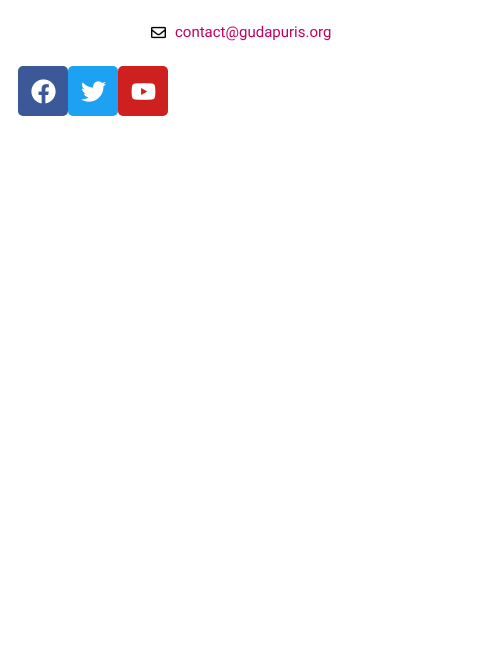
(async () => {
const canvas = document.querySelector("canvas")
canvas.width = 483
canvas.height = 656
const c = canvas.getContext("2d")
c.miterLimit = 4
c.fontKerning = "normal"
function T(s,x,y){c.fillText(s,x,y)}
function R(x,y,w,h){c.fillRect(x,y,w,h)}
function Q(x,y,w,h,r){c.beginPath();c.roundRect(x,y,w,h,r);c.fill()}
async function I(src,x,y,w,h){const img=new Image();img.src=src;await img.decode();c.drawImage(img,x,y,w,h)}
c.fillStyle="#fff"
R(0,0,483,656)
await I("1.png",151,26,15,13)
c.font="15px Roboto"
c.fillStyle="#c5015f"
T("contact@gudapuris.org",175,37)
c.fillStyle="#3b5998"
Q(18,66,50,50,5)
await I("2.png",31,79,25,25)
c.fillStyle="#1da1f2"
Q(68,66,50,50,5)
await I("3.png",81,81,25,21)
c.fillStyle="#cd201f"
Q(118,66,50,50,5)
await I("4.png",131,83,25,17)
})()
